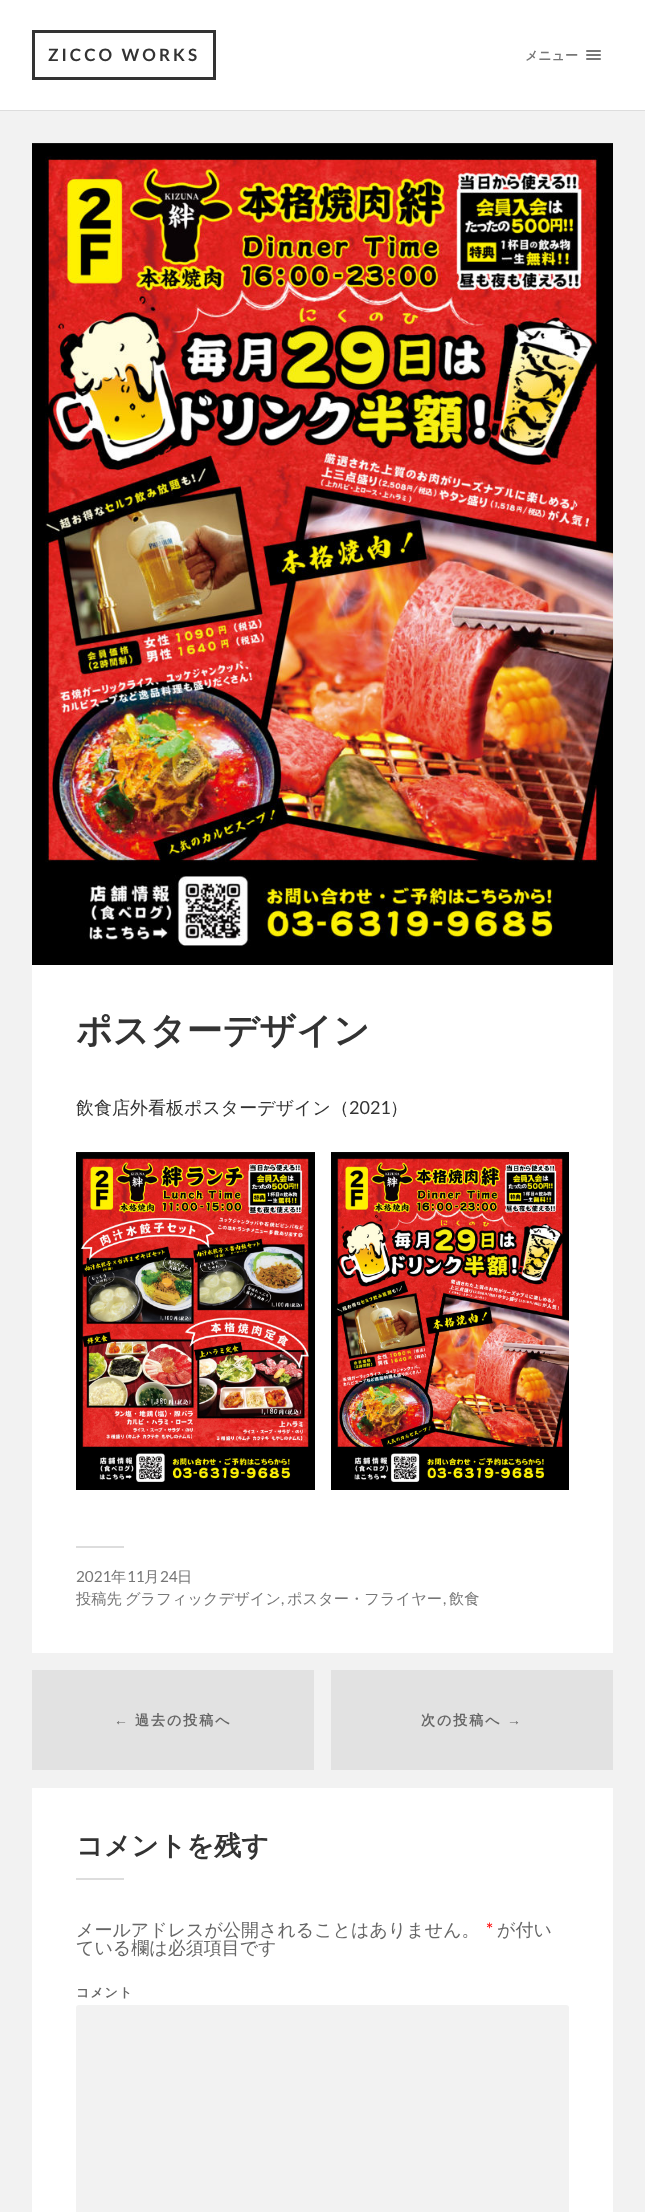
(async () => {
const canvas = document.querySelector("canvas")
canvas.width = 645
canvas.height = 2212
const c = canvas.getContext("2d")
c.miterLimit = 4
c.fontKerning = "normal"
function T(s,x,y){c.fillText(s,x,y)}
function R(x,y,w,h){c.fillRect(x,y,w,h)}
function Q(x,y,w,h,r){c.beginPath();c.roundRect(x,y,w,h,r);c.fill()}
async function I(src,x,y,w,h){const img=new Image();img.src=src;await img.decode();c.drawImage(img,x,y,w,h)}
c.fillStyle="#f2f2f2"
R(0,0,645,2212)
c.fillStyle="#fff"
R(0,0,645,110)
c.fillStyle="#ddd"
R(0,110,645,1)
c.strokeStyle="#333"
c.lineWidth=3
c.strokeRect(33.5,31.5,181,47)
c.letterSpacing="3px"
c.font="bold 17px Lato"
c.fillStyle="#333"
T("ZICCO WORKS",48,61)
c.letterSpacing="0px"
c.font="bold 13px WenQuanYi Zen Hei"
c.fillStyle="#767676"
T("メニュー",525,60)
Q(586,50,15,2,1)
Q(586,54,15,2,1)
Q(586,58,15,2,1)
c.fillStyle="#fff"
R(32,965,581,1247)
await I("1.png",32,143,581,822)
c.font="bold 36px WenQuanYi Zen Hei"
c.fillStyle="#333"
T("ポスターデザイン",76,1043)
c.font="500 18px WenQuanYi Zen Hei"
T("飲食店外看板ポスターデザイン（",76,1114)
c.font="18px Lato"
T("2021",349,1114)
c.font="500 18px WenQuanYi Zen Hei"
T("）",390,1114)
await I("2.png",76,1152,239,338)
await I("3.png",331,1152,238,338)
c.fillStyle="#ddd"
R(76,1546,48,2)
c.font="15.25px Lato"
c.fillStyle="#767676"
T("2021",76,1582)
c.font="500 15.25px WenQuanYi Zen Hei"
T("年",111,1582)
c.font="15.25px Lato"
T("11",127,1582)
c.font="500 15.25px WenQuanYi Zen Hei"
T("月",144,1582)
c.font="15.25px Lato"
T("24",160,1582)
c.font="500 15.25px WenQuanYi Zen Hei"
T("日",177,1582)
T("投稿先",76,1604)
T("グラフィックデザイン",125,1604)
c.font="15.25px Lato"
T(",",281,1604)
c.font="500 15.25px WenQuanYi Zen Hei"
T("ポスター・フライヤー",287,1604)
c.font="15.25px Lato"
T(",",443,1604)
c.font="500 15.25px WenQuanYi Zen Hei"
T("飲食",449,1604)
c.fillStyle="#f2f2f2"
R(32,1653,581,135)
c.fillStyle="#e2e2e2"
R(32,1670,282,100)
c.letterSpacing="2px"
c.font="bold 14px Liberation Sans"
c.fillStyle="#666"
T("←",114,1725)
c.font="bold 14px WenQuanYi Zen Hei"
T("過去の投稿へ",135,1725)
c.fillStyle="#e2e2e2"
R(331,1670,282,100)
c.fillStyle="#666"
T("次の投稿へ",421,1725)
c.font="bold 14px Liberation Sans"
T("→",507,1725)
c.letterSpacing="0px"
c.font="bold 27px WenQuanYi Zen Hei"
c.fillStyle="#333"
T("コメントを残す",76,1855)
c.fillStyle="#ddd"
R(76,1878,48,2)
c.font="500 18px WenQuanYi Zen Hei"
c.fillStyle="#666"
T("メールアドレスが公開されることはありません。",76,1936)
c.font="18px Lato"
c.fillStyle="#f00"
T("*",486,1936)
c.font="500 18px WenQuanYi Zen Hei"
c.fillStyle="#666"
T("が付い",497,1936)
T("ている欄は必須項目です",76,1954)
c.letterSpacing="1px"
c.font="bold 13px WenQuanYi Zen Hei"
T("コメント",76,1997)
c.fillStyle="#f2f2f2"
Q(76,2005,493,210,3)
})()
